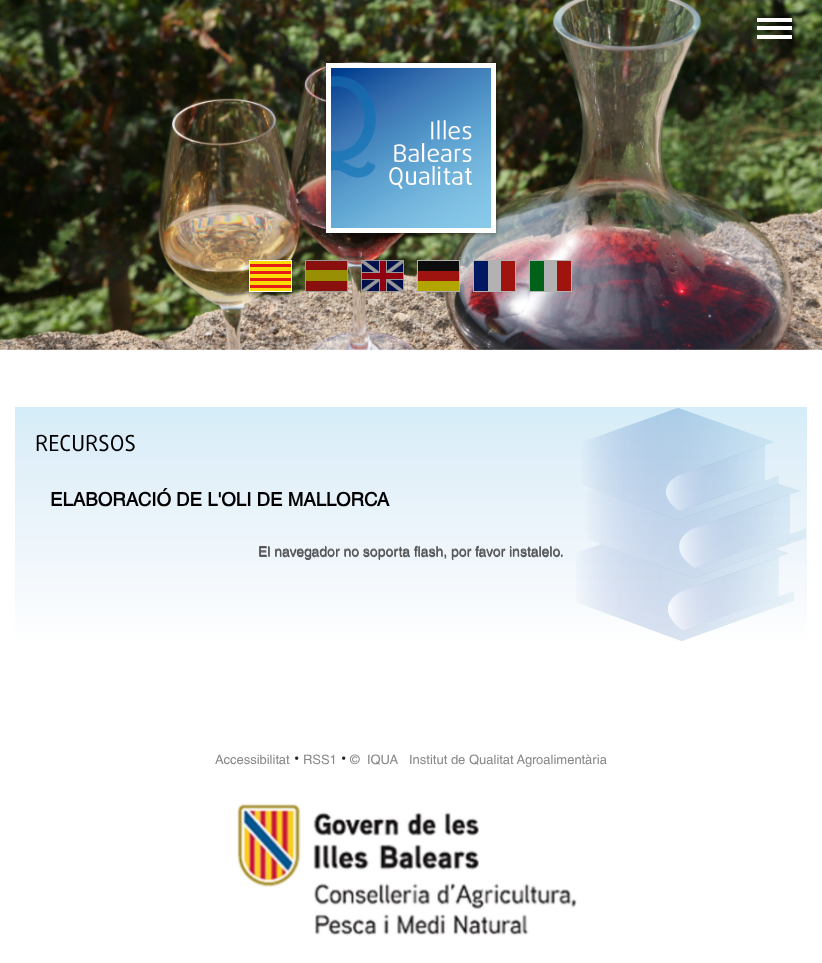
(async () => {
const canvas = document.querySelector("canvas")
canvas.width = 822
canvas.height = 963
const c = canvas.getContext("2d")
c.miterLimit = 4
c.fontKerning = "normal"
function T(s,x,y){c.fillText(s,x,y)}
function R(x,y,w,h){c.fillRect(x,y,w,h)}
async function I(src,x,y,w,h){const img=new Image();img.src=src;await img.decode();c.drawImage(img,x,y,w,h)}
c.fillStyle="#fff"
R(0,0,822,963)
await I("1.png",0,0,822,350)
c.fillStyle="#000000cc"
c.filter="blur(3.5px)"
c.beginPath()
c.rect(756,20,35,4)
c.fill()
c.filter="none"
c.fillStyle="#fff"
R(757,18,35,4)
c.fillStyle="#000000cc"
c.filter="blur(3.5px)"
c.beginPath()
c.rect(756,28,35,4)
c.fill()
c.filter="none"
c.fillStyle="#fff"
R(757,26,35,4)
c.fillStyle="#000000cc"
c.filter="blur(3.5px)"
c.beginPath()
c.rect(756,37,35,4)
c.fill()
c.filter="none"
c.fillStyle="#fff"
R(757,35,35,4)
c.fillStyle="#00000066"
c.filter="blur(2px)"
c.beginPath()
c.rect(327,64,170,170)
c.fill()
c.filter="none"
await I("2.png",331,68,160,160)
c.strokeStyle="#fff"
c.lineWidth=5
c.strokeRect(328.5,65.5,165,165)
await I("3.png",243,256,56,46)
await I("4.png",305,260,43,32)
await I("5.png",361,260,43,32)
await I("6.png",417,260,43,32)
await I("7.png",473,260,43,32)
await I("8.png",529,260,43,32)
await I("9.png",576,408,230,233)
await I("10.png",15,407,792,234)
c.font="22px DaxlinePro"
c.fillStyle="#000"
T("RECURSOS",35,451)
c.font="bold 18.7px Helvetica"
T("ELABORACIÓ DE L'OLI DE MALLORCA",50,506)
await I("11.png",259,546,304,14)
c.font="14px Helvetica"
c.fillStyle="#58585a"
T("El navegador no soporta flash, por favor instalelo.",258,556)
c.font="13px Helvetica"
c.fillStyle="#888"
T("Accessibilitat",215,764)
c.font="16px Roboto"
c.fillStyle="#212529"
T("•",294,764)
c.font="13px Helvetica"
c.fillStyle="#888"
T("RSS1",303,764)
c.font="16px Roboto"
c.fillStyle="#212529"
T("•",341,764)
c.font="13px Helvetica"
c.fillStyle="#888"
T("©",350,764)
T("IQUA",367,764)
T("Institut de Qualitat Agroalimentària",409,764)
await I("12.png",236,803,341,133)
})()
